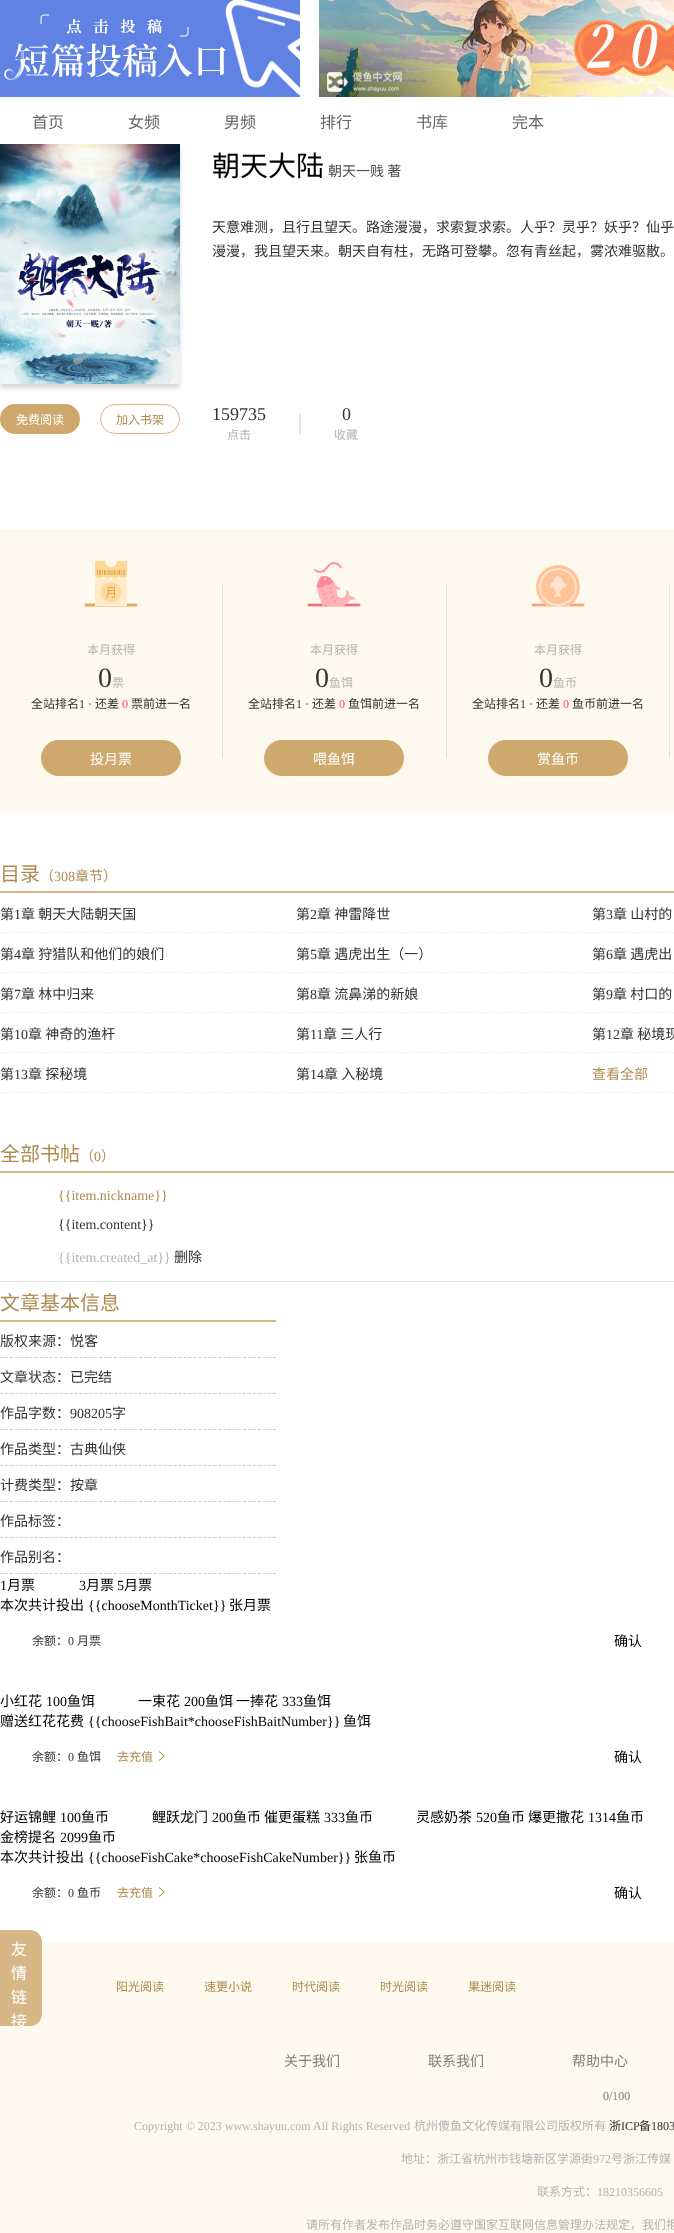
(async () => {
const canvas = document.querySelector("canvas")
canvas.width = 674
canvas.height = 2233
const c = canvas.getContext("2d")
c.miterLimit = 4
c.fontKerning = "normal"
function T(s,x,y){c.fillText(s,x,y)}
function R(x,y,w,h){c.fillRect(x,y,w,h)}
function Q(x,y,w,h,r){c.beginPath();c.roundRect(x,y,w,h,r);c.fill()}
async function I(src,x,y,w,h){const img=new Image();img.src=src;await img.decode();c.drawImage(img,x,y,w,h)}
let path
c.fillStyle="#fff"
R(0,0,674,2233)
await I("1.png",0,0,300,97)
await I("2.png",319,0,355,97)
c.font="16px Noto Sans CJK SC"
c.fillStyle="#666"
T("首页",32,128)
T("女频",128,128)
T("男频",224,128)
T("排行",320,128)
T("书库",416,128)
T("完本",512,128)
c.fillStyle="#b2b2b280"
c.filter="blur(2px)"
c.beginPath()
c.rect(0,148,180,240)
c.fill()
c.filter="none"
await I("3.png",0,144,180,240)
c.fillStyle="#cea86c"
Q(0,404,80,30,15)
c.font="12px Noto Sans CJK SC"
c.fillStyle="#fff"
T("免费阅读",16,424)
c.beginPath()
c.roundRect(100.5,404.5,79,29,14.5)
c.strokeStyle="#d6b785"
c.stroke()
c.fillStyle="#ad8b51"
T("加入书架",116,424)
c.font="28px Noto Sans CJK SC"
c.fillStyle="#000"
T("朝天大陆",212,176)
c.font="14px Noto Sans CJK SC"
c.fillStyle="#4c4c4c"
T("朝天一贱 著",328,176)
c.fillStyle="#333"
T("天意难测，且行且望天。路途漫漫，求索复求索。人乎？灵乎？妖乎？仙乎",212,232)
T("漫漫，我且望天来。朝天自有柱，无路可登攀。忽有青丝起，雾浓难驱散。",212,256)
c.font="18px Liberation Serif"
T("159735",212,420)
c.font="12px Noto Sans CJK SC"
c.fillStyle="#b3b3b3"
T("点击",227,439)
c.fillStyle="#e5e5e5"
R(299,414,2,20)
c.font="18px Liberation Serif"
c.fillStyle="#333"
T("0",342,420)
c.font="12px Noto Sans CJK SC"
c.fillStyle="#b3b3b3"
T("收藏",334,439)
c.fillStyle="#fdf9ee"
R(0,529,674,284)
await I("4.png",84,561,54,46)
c.fillStyle="#b3b3b3"
T("本月获得",87,654)
c.font="28px Liberation Serif"
c.fillStyle="#333"
T("0",98,687)
c.font="12px Noto Sans CJK SC"
c.fillStyle="#b3b3b3"
T("票",112,687)
c.fillStyle="#333"
T("全站排名",31,708)
c.font="12px Liberation Serif"
T("1 ·",79,708)
c.font="12px Noto Sans CJK SC"
T("还差",95,708)
c.font="12px Liberation Serif"
c.fillStyle="#ff4364"
T("0",122,708)
c.font="12px Noto Sans CJK SC"
c.fillStyle="#333"
T("票前进一名",131,708)
c.fillStyle="#cea86c"
Q(41,740,140,36,18)
c.font="14px Noto Sans CJK SC"
c.fillStyle="#fff"
T("投月票",90,764)
c.fillStyle="#e4e0d6"
R(222,584,1,174)
await I("5.png",307,562,54,45)
c.font="12px Noto Sans CJK SC"
c.fillStyle="#b3b3b3"
T("本月获得",310,654)
c.font="28px Liberation Serif"
c.fillStyle="#333"
T("0",315,687)
c.font="12px Noto Sans CJK SC"
c.fillStyle="#b3b3b3"
T("鱼饵",329,687)
c.fillStyle="#333"
T("全站排名",248,708)
c.font="12px Liberation Serif"
T("1 ·",296,708)
c.font="12px Noto Sans CJK SC"
T("还差",312,708)
c.font="12px Liberation Serif"
c.fillStyle="#ff4364"
T("0",339,708)
c.font="12px Noto Sans CJK SC"
c.fillStyle="#333"
T("鱼饵前进一名",348,708)
c.fillStyle="#cea86c"
Q(264,740,140,36,18)
c.font="14px Noto Sans CJK SC"
c.fillStyle="#fff"
T("喂鱼饵",313,764)
c.fillStyle="#e4e0d6"
R(446,584,1,174)
await I("6.png",531,565,54,42)
c.font="12px Noto Sans CJK SC"
c.fillStyle="#b3b3b3"
T("本月获得",534,654)
c.font="28px Liberation Serif"
c.fillStyle="#333"
T("0",539,687)
c.font="12px Noto Sans CJK SC"
c.fillStyle="#b3b3b3"
T("鱼币",553,687)
c.fillStyle="#333"
T("全站排名",472,708)
c.font="12px Liberation Serif"
T("1 ·",520,708)
c.font="12px Noto Sans CJK SC"
T("还差",536,708)
c.font="12px Liberation Serif"
c.fillStyle="#ff4364"
T("0",563,708)
c.font="12px Noto Sans CJK SC"
c.fillStyle="#333"
T("鱼币前进一名",572,708)
c.fillStyle="#cea86c"
Q(488,740,140,36,18)
c.font="14px Noto Sans CJK SC"
c.fillStyle="#fff"
T("赏鱼币",537,764)
c.fillStyle="#e4e0d6"
R(669,584,1,174)
c.fillStyle="#d6b785"
R(0,891,674,2)
c.font="20px Noto Sans CJK SC"
c.fillStyle="#ad8b51"
T("目录",0,881)
c.font="14px Noto Sans CJK SC"
T("（",40,881)
c.font="14px Liberation Serif"
T("308",54,881)
c.font="14px Noto Sans CJK SC"
T("章节）",75,881)
path = new Path2D("M0 932.5h296")
c.strokeStyle="#f1f1f1"
c.setLineDash([3,1.97])
c.stroke(path)
c.fillStyle="#333"
T("第",0,919)
c.font="14px Liberation Serif"
T("1",14,919)
c.font="14px Noto Sans CJK SC"
T("章 朝天大陆朝天国",21,919)
path = new Path2D("M296 932.5h296")
c.stroke(path)
T("第",296,919)
c.font="14px Liberation Serif"
T("2",310,919)
c.font="14px Noto Sans CJK SC"
T("章 神雷降世",317,919)
path = new Path2D("M592 932.5h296")
c.stroke(path)
T("第",592,919)
c.font="14px Liberation Serif"
T("3",606,919)
c.font="14px Noto Sans CJK SC"
T("章 山村的",613,919)
path = new Path2D("M0 972.5h296")
c.stroke(path)
T("第",0,959)
c.font="14px Liberation Serif"
T("4",14,959)
c.font="14px Noto Sans CJK SC"
T("章 狩猎队和他们的娘们",21,959)
path = new Path2D("M296 972.5h296")
c.stroke(path)
T("第",296,959)
c.font="14px Liberation Serif"
T("5",310,959)
c.font="14px Noto Sans CJK SC"
T("章 遇虎出生（一）",317,959)
path = new Path2D("M592 972.5h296")
c.stroke(path)
T("第",592,959)
c.font="14px Liberation Serif"
T("6",606,959)
c.font="14px Noto Sans CJK SC"
T("章 遇虎出",613,959)
path = new Path2D("M0 1012.5h296")
c.stroke(path)
T("第",0,999)
c.font="14px Liberation Serif"
T("7",14,999)
c.font="14px Noto Sans CJK SC"
T("章 林中归来",21,999)
path = new Path2D("M296 1012.5h296")
c.stroke(path)
T("第",296,999)
c.font="14px Liberation Serif"
T("8",310,999)
c.font="14px Noto Sans CJK SC"
T("章 流鼻涕的新娘",317,999)
path = new Path2D("M592 1012.5h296")
c.stroke(path)
T("第",592,999)
c.font="14px Liberation Serif"
T("9",606,999)
c.font="14px Noto Sans CJK SC"
T("章 村口的",613,999)
path = new Path2D("M0 1052.5h296")
c.stroke(path)
T("第",0,1039)
c.font="14px Liberation Serif"
T("10",14,1039)
c.font="14px Noto Sans CJK SC"
T("章 神奇的渔杆",28,1039)
path = new Path2D("M296 1052.5h296")
c.stroke(path)
T("第",296,1039)
c.font="14px Liberation Serif"
T("11",310,1039)
c.font="14px Noto Sans CJK SC"
T("章 三人行",323,1039)
path = new Path2D("M592 1052.5h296")
c.stroke(path)
T("第",592,1039)
c.font="14px Liberation Serif"
T("12",606,1039)
c.font="14px Noto Sans CJK SC"
T("章 秘境现",620,1039)
path = new Path2D("M0 1092.5h296")
c.stroke(path)
T("第",0,1079)
c.font="14px Liberation Serif"
T("13",14,1079)
c.font="14px Noto Sans CJK SC"
T("章 探秘境",28,1079)
path = new Path2D("M296 1092.5h296")
c.stroke(path)
T("第",296,1079)
c.font="14px Liberation Serif"
T("14",310,1079)
c.font="14px Noto Sans CJK SC"
T("章 入秘境",324,1079)
path = new Path2D("M592 1092.5h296")
c.stroke(path)
c.fillStyle="#ad8b51"
T("查看全部",592,1079)
c.fillStyle="#d6b785"
R(0,1171,674,2)
c.font="20px Noto Sans CJK SC"
c.fillStyle="#ad8b51"
T("全部书帖",0,1161)
c.font="14px Noto Sans CJK SC"
T("（",80,1161)
c.font="14px Liberation Serif"
T("0",94,1161)
c.font="14px Noto Sans CJK SC"
T("）",101,1161)
c.fillStyle="#e5e5e5"
R(0,1281,674,1)
c.font="14px Liberation Serif"
c.fillStyle="#ad8b51"
T("{{item.nickname}}",58,1200)
c.fillStyle="#333"
T("{{item.content}}",58,1229)
c.fillStyle="#b3b3b3"
T("{{item.created_at}}",58,1262)
c.font="14px Noto Sans CJK SC"
c.fillStyle="#333"
T("删除",174,1262)
c.fillStyle="#d6b785"
R(0,1320,276,2)
c.font="20px Noto Sans CJK SC"
c.fillStyle="#ad8b51"
T("文章基本信息",0,1310)
path = new Path2D("M0 1357.5h276")
c.strokeStyle="#ccc"
c.setLineDash([3,1.96])
c.stroke(path)
c.font="14px Noto Sans CJK SC"
c.fillStyle="#333"
T("版权来源：悦客",0,1346)
path = new Path2D("M0 1393.5h276")
c.stroke(path)
T("文章状态：已完结",0,1382)
path = new Path2D("M0 1429.5h276")
c.stroke(path)
T("作品字数：",0,1418)
c.font="14px Liberation Serif"
T("908205",70,1418)
c.font="14px Noto Sans CJK SC"
T("字",112,1418)
path = new Path2D("M0 1465.5h276")
c.stroke(path)
T("作品类型：古典仙侠",0,1454)
path = new Path2D("M0 1501.5h276")
c.stroke(path)
T("计费类型：按章",0,1490)
path = new Path2D("M0 1537.5h276")
c.stroke(path)
T("作品标签：",0,1526)
path = new Path2D("M0 1573.5h276")
c.stroke(path)
T("作品别名：",0,1562)
c.font="14px Liberation Serif"
c.fillStyle="#000"
T("1",0,1590)
c.font="14px Noto Sans CJK SC"
T("月票",7,1590)
c.font="14px Liberation Serif"
T("3",79,1590)
c.font="14px Noto Sans CJK SC"
T("月票",86,1590)
c.font="14px Liberation Serif"
T("5",117,1590)
c.font="14px Noto Sans CJK SC"
T("月票",124,1590)
T("本次共计投出",0,1610)
c.font="14px Liberation Serif"
T("{{chooseMonthTicket}}",88,1610)
c.font="14px Noto Sans CJK SC"
T("张月票",229,1610)
c.font="12px Noto Sans CJK SC"
c.fillStyle="#333"
T("余额：",32,1645)
c.font="12px Liberation Serif"
T("0",68,1645)
c.font="12px Noto Sans CJK SC"
T("月票",77,1645)
c.font="14px Noto Sans CJK SC"
c.fillStyle="#000"
T("确认",614,1646)
c.fillStyle="#fdf9ee"
R(0,1942,674,291)
c.font="12px Liberation Serif"
c.fillStyle="#9a9a9a"
T("0/100",603,2100)
c.font="14px Noto Sans CJK SC"
c.fillStyle="#000"
T("小红花",0,1706)
c.font="14px Liberation Serif"
T("100",46,1706)
c.font="14px Noto Sans CJK SC"
T("鱼饵",67,1706)
T("一束花",138,1706)
c.font="14px Liberation Serif"
T("200",184,1706)
c.font="14px Noto Sans CJK SC"
T("鱼饵",205,1706)
T("一捧花",236,1706)
c.font="14px Liberation Serif"
T("333",282,1706)
c.font="14px Noto Sans CJK SC"
T("鱼饵",303,1706)
T("赠送红花花费",0,1726)
c.font="14px Liberation Serif"
T("{{chooseFishBait*chooseFishBaitNumber}}",88,1726)
c.font="14px Noto Sans CJK SC"
T("鱼饵",343,1726)
c.font="12px Noto Sans CJK SC"
c.fillStyle="#333"
T("余额：",32,1761)
c.font="12px Liberation Serif"
T("0",68,1761)
c.font="12px Noto Sans CJK SC"
T("鱼饵",77,1761)
c.fillStyle="#ad8b51"
T("去充值",117,1761)
path = new Path2D("M164.5 1756l-5 5l-.5-1l5-4.5z")
c.fill(path)
path = new Path2D("M164.5 1756l-.5 .5l-5-4.5l.5-1z")
c.fill(path)
c.font="14px Noto Sans CJK SC"
c.fillStyle="#000"
T("确认",614,1762)
c.font="12px Liberation Serif"
c.fillStyle="#9a9a9a"
T("0/100",603,2100)
c.font="14px Noto Sans CJK SC"
c.fillStyle="#000"
T("好运锦鲤",0,1822)
c.font="14px Liberation Serif"
T("100",60,1822)
c.font="14px Noto Sans CJK SC"
T("鱼币",81,1822)
T("鲤跃龙门",152,1822)
c.font="14px Liberation Serif"
T("200",212,1822)
c.font="14px Noto Sans CJK SC"
T("鱼币",233,1822)
T("催更蛋糕",264,1822)
c.font="14px Liberation Serif"
T("333",324,1822)
c.font="14px Noto Sans CJK SC"
T("鱼币",345,1822)
T("灵感奶茶",416,1822)
c.font="14px Liberation Serif"
T("520",476,1822)
c.font="14px Noto Sans CJK SC"
T("鱼币",497,1822)
T("爆更撒花",528,1822)
c.font="14px Liberation Serif"
T("1314",588,1822)
c.font="14px Noto Sans CJK SC"
T("鱼币",616,1822)
T("金榜提名",0,1842)
c.font="14px Liberation Serif"
T("2099",60,1842)
c.font="14px Noto Sans CJK SC"
T("鱼币",88,1842)
T("本次共计投出",0,1862)
c.font="14px Liberation Serif"
T("{{chooseFishCake*chooseFishCakeNumber}}",88,1862)
c.font="14px Noto Sans CJK SC"
T("张鱼币",354,1862)
c.font="12px Noto Sans CJK SC"
c.fillStyle="#333"
T("余额：",32,1897)
c.font="12px Liberation Serif"
T("0",68,1897)
c.font="12px Noto Sans CJK SC"
T("鱼币",77,1897)
c.fillStyle="#ad8b51"
T("去充值",117,1897)
path = new Path2D("M164.5 1892l-5 5l-.5-1l5-4.5z")
c.fill(path)
path = new Path2D("M164.5 1892l-.5 .5l-5-4.5l.5-1z")
c.fill(path)
c.font="14px Noto Sans CJK SC"
c.fillStyle="#000"
T("确认",614,1898)
c.fillStyle="#d6b785"
c.beginPath()
c.roundRect(0,1930,42,96,[0,12,12,0])
c.fill()
c.letterSpacing="6px"
c.font="16px Noto Sans CJK SC"
c.fillStyle="#fff"
T("友",11,1955)
T("情",11,1979)
T("链",11,2003)
T("接",11,2027)
c.letterSpacing="0px"
c.font="12px Noto Sans CJK SC"
c.fillStyle="#ad8b51"
T("阳光阅读",116,1991)
T("速更小说",204,1991)
T("时代阅读",292,1991)
T("时光阅读",380,1991)
T("果迷阅读",468,1991)
c.font="14px Noto Sans CJK SC"
c.fillStyle="#7f7f7f"
T("关于我们",284,2066)
T("联系我们",428,2066)
T("帮助中心",572,2066)
c.font="12px Liberation Serif"
c.fillStyle="#b3b3b3"
T("Copyright © 2023 www.shayuu.com All Rights Reserved",134,2130)
c.font="12px Noto Sans CJK SC"
T("杭州傻鱼文化传媒有限公司版权所有",414,2130)
c.fillStyle="#333"
T("浙",609,2130)
c.font="12px Liberation Serif"
T("ICP",621,2130)
c.font="12px Noto Sans CJK SC"
T("备",639,2130)
c.font="12px Liberation Serif"
T("1803",651,2130)
c.font="12px Noto Sans CJK SC"
c.fillStyle="#b3b3b3"
T("地址：浙江省杭州市钱塘新区学源街",401,2163)
c.font="12px Liberation Serif"
T("972",593,2163)
c.font="12px Noto Sans CJK SC"
T("号浙江传媒",611,2163)
T("联系方式：",537,2196)
c.font="12px Liberation Serif"
T("18210356605",597,2196)
c.font="12px Noto Sans CJK SC"
T("请所有作者发布作品时务必遵守国家互联网信息管理办法规定，我们拒",306,2229)
})()
